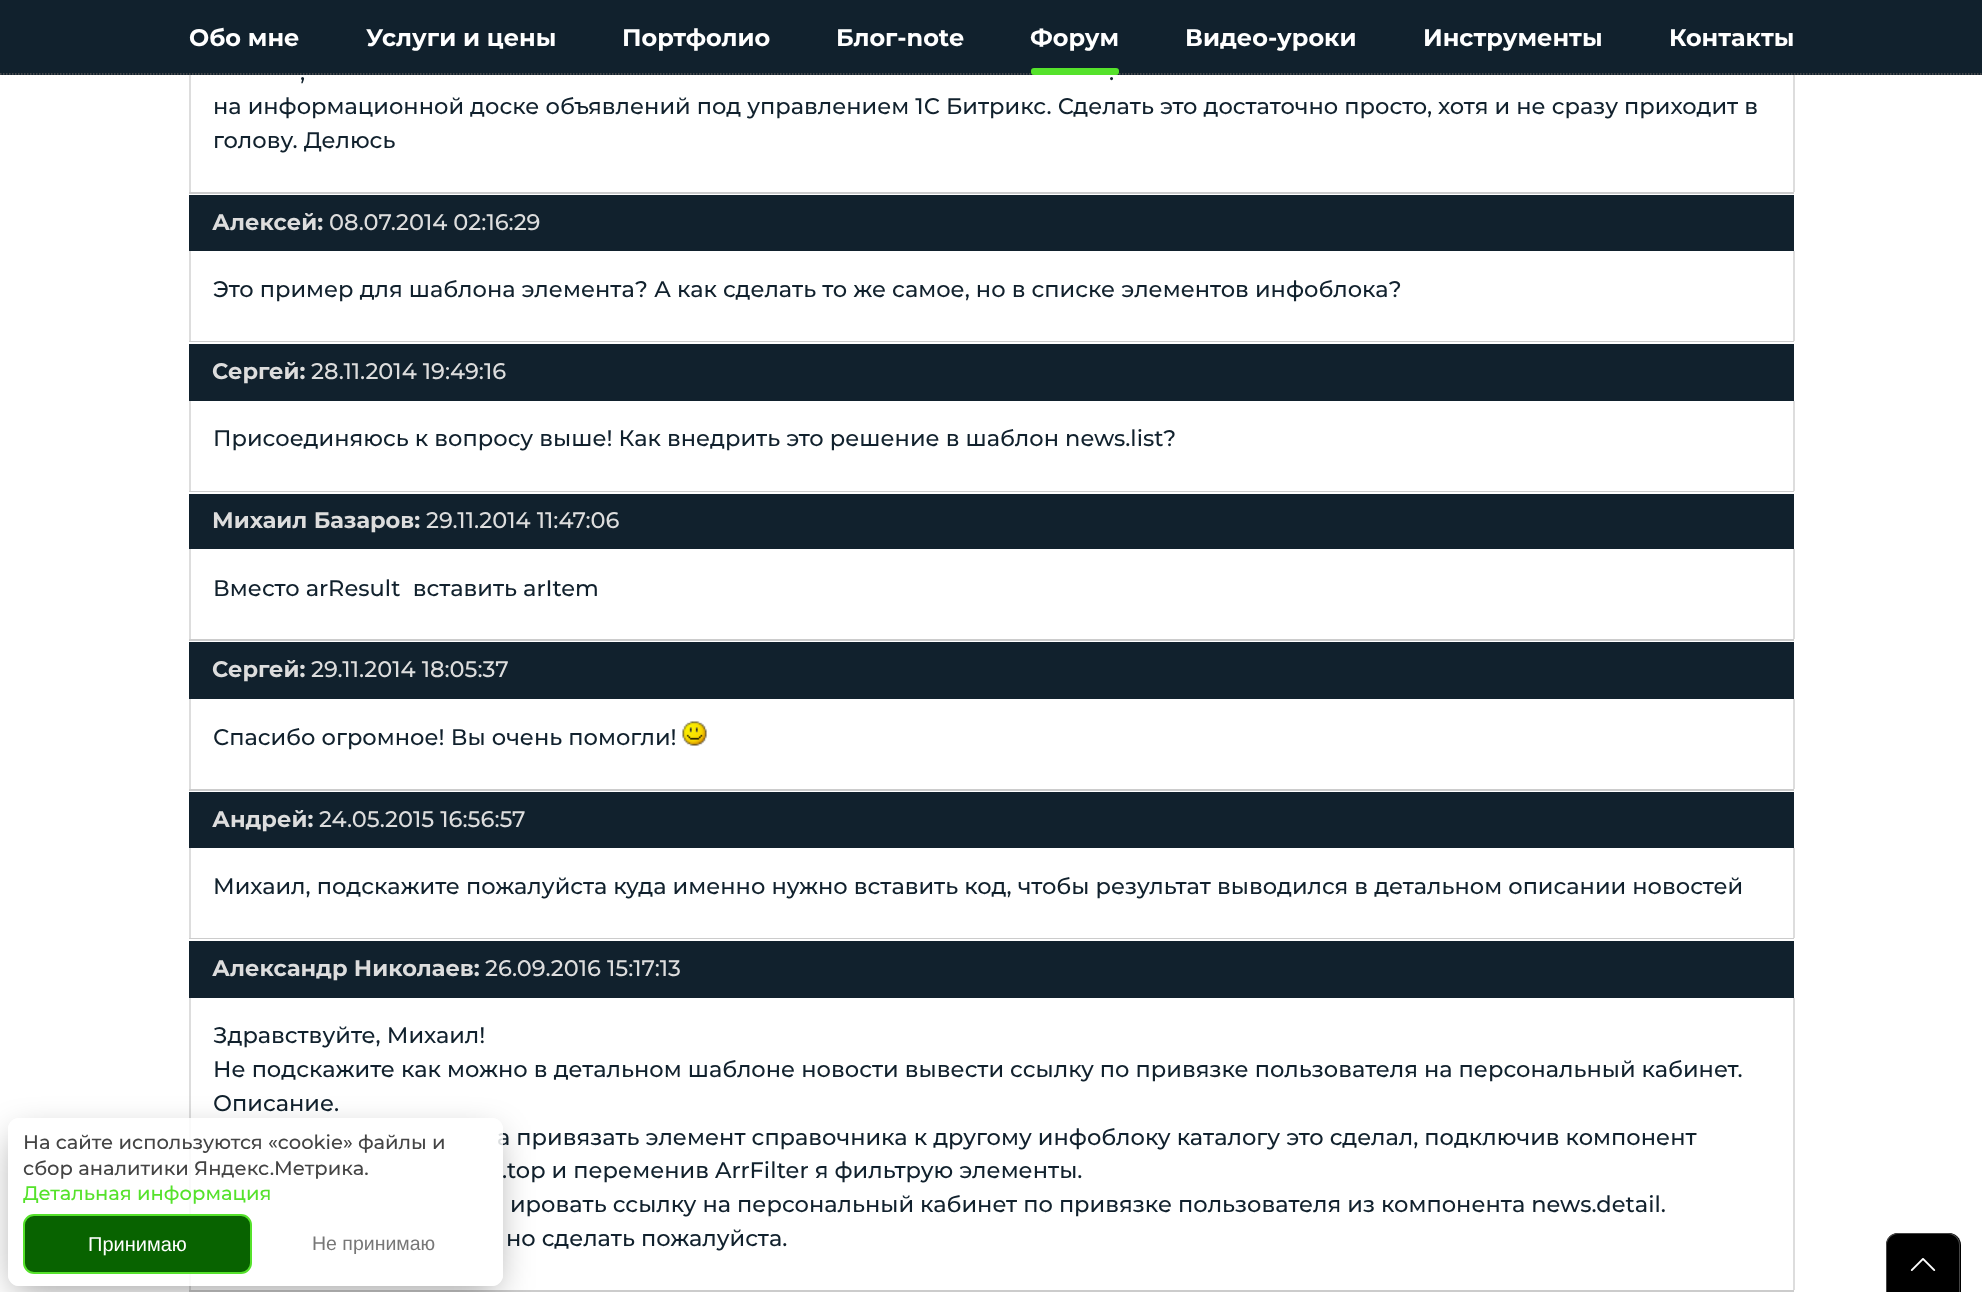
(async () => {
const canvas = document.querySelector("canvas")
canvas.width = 1982
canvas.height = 1292
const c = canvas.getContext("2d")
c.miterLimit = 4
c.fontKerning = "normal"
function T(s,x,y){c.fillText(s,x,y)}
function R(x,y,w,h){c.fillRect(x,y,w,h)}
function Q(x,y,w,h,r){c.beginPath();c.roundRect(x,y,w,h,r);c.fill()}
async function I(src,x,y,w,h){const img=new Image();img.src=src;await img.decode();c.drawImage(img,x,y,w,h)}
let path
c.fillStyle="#fff"
R(0,0,1982,1292)
c.fillStyle="#11212d"
R(0,0,1982,75)
path = new Path2D("M0 74h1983")
c.strokeStyle="#555"
c.lineWidth=1.5
c.setLineDash([1.5,1.5])
c.stroke(path)
c.font="bold 24px Montserrat"
c.fillStyle="#fff"
T("Обо мне",189,46)
T("Услуги и цены",366,46)
T("Портфолио",622,46)
T("Блог-note",836,46)
T("Форум",1030,46)
c.fillStyle="#55e22b"
Q(1031,68,88,7,3)
c.fillStyle="#fff"
T("Видео-уроки",1185,46)
T("Инструменты",1423,46)
T("Контакты",1669,46)
c.fillStyle="#ccc"
R(189,192,1605,2)
c.fillStyle="#ddd"
R(1793,75,2,117)
R(189,75,2,117)
c.font="500 22.5px Montserrat"
c.fillStyle="#11212d"
T(",",300,80)
T(".",1109,80)
T("на информационной доске объявлений под управлением 1С Битрикс. Сделать это достаточно просто, хотя и не сразу приходит в",213,114)
T("голову. Делюсь",213,148)
c.fillStyle="#ccc"
R(189,341,1605,1)
c.fillStyle="#11212d"
R(189,195,1605,56)
c.font="bold 22.5px Montserrat"
c.fillStyle="#ddd"
T("Алексей:",212,230)
c.font="500 22.5px Montserrat"
T("08.07.2014 02:16:29",329,230)
R(1793,251,2,90)
R(189,251,2,90)
c.fillStyle="#11212d"
T("Это пример для шаблона элемента? А как сделать то же самое, но в списке элементов инфоблока?",213,297)
c.fillStyle="#ccc"
R(189,491,1605,1)
c.fillStyle="#11212d"
R(189,344,1605,57)
c.font="bold 22.5px Montserrat"
c.fillStyle="#ddd"
T("Сергей:",212,379)
c.font="500 22.5px Montserrat"
T("28.11.2014 19:49:16",311,379)
R(1793,401,2,90)
R(189,401,2,90)
c.fillStyle="#11212d"
T("Присоединяюсь к вопросу выше! Как внедрить это решение в шаблон news.list?",213,446)
c.fillStyle="#ccc"
R(189,639,1605,2)
c.fillStyle="#11212d"
R(189,494,1605,55)
c.font="bold 22.5px Montserrat"
c.fillStyle="#ddd"
T("Михаил Базаров:",212,528)
c.font="500 22.5px Montserrat"
T("29.11.2014 11:47:06",426,528)
R(1793,549,2,90)
R(189,549,2,90)
c.fillStyle="#11212d"
T("Вместо arResult  вставить arItem",213,596)
c.fillStyle="#ccc"
R(189,789,1605,2)
c.fillStyle="#11212d"
R(189,642,1605,57)
c.font="bold 22.5px Montserrat"
c.fillStyle="#ddd"
T("Сергей:",212,677)
c.font="500 22.5px Montserrat"
T("29.11.2014 18:05:37",311,677)
R(1793,699,2,90)
R(189,699,2,90)
c.fillStyle="#11212d"
T("Спасибо огромное! Вы очень помогли!",213,745)
await I("1.png",682,721,25,25)
c.fillStyle="#ccc"
R(189,938,1605,1)
c.fillStyle="#11212d"
R(189,792,1605,56)
c.font="bold 22.5px Montserrat"
c.fillStyle="#ddd"
T("Андрей:",212,827)
c.font="500 22.5px Montserrat"
T("24.05.2015 16:56:57",319,827)
R(1793,848,2,90)
R(189,848,2,90)
c.fillStyle="#11212d"
T("Михаил, подскажите пожалуйста куда именно нужно вставить код, чтобы результат выводился в детальном описании новостей",213,894)
c.fillStyle="#ccc"
R(189,1290,1605,2)
c.fillStyle="#11212d"
R(189,941,1605,57)
c.font="bold 22.5px Montserrat"
c.fillStyle="#ddd"
T("Александр Николаев:",212,976)
c.font="500 22.5px Montserrat"
T("26.09.2016 15:17:13",485,976)
R(1793,998,2,292)
R(189,998,2,292)
c.fillStyle="#11212d"
T("Здравствуйте, Михаил!",213,1043)
T("Не подскажите как можно в детальном шаблоне новости вывести ссылку по привязке пользователя на персональный кабинет.",213,1077)
T("Описание.",213,1111)
T("а привязать элемент справочника к другому инфоблоку каталогу это сделал, подключив компонент",497,1145)
T(".top и переменив ArrFilter я фильтрую элементы.",502,1178)
T("ировать ссылку на персональный кабинет по привязке пользователя из компонента news.detail.",510,1212)
T("но сделать пожалуйста.",506,1246)
c.save()
path = new Path2D("M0 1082h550v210h-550zm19 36h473c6 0 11 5 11 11v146c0 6-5 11-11 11h-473c-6 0-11-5-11-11v-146c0-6 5-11 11-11z")
c.clip(path,"evenodd")
c.fillStyle="#00000063"
c.filter="blur(18px)"
c.beginPath()
c.roundRect(15,1137,480,153,3)
c.fill()
c.filter="none"
c.restore()
c.fillStyle="#ffffffd9"
Q(8,1118,495,168,11)
c.font="500 19.5px Montserrat"
c.fillStyle="#444"
T("На сайте используются «cookie» файлы и",23,1149)
T("сбор аналитики Яндекс.Метрика.",23,1175)
c.fillStyle="#55e22b"
T("Детальная информация",23,1200)
c.fillStyle="#086300"
c.beginPath()
c.roundRect(24,1215,227,58,10)
c.fill()
c.strokeStyle="#55e22b"
c.lineWidth=2
c.setLineDash([])
c.stroke()
c.font="20px Liberation Sans"
c.fillStyle="#fff"
T("Принимаю",88,1251)
c.font="19.5px Liberation Sans"
c.fillStyle="#777"
T("Не принимаю",312,1250)
c.fillStyle="#000"
path = new Path2D("M1898 1233h51c6.5 0 12 5.5 12 12v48h-75v-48c0-6.5 5.5-12 12-12z")
c.fill(path)
c.fillStyle="#444"
path = new Path2D("M1898 1233h50c7 0 12 5 12 12v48h-74v-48c0-7 5-12 12-12zm0 1h50c6 0 11 5 11 11v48h-72v-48c0-6 5-11 11-11z")
c.fill(path,"evenodd")
await I("2.png",1910,1258,26,13)
})()
